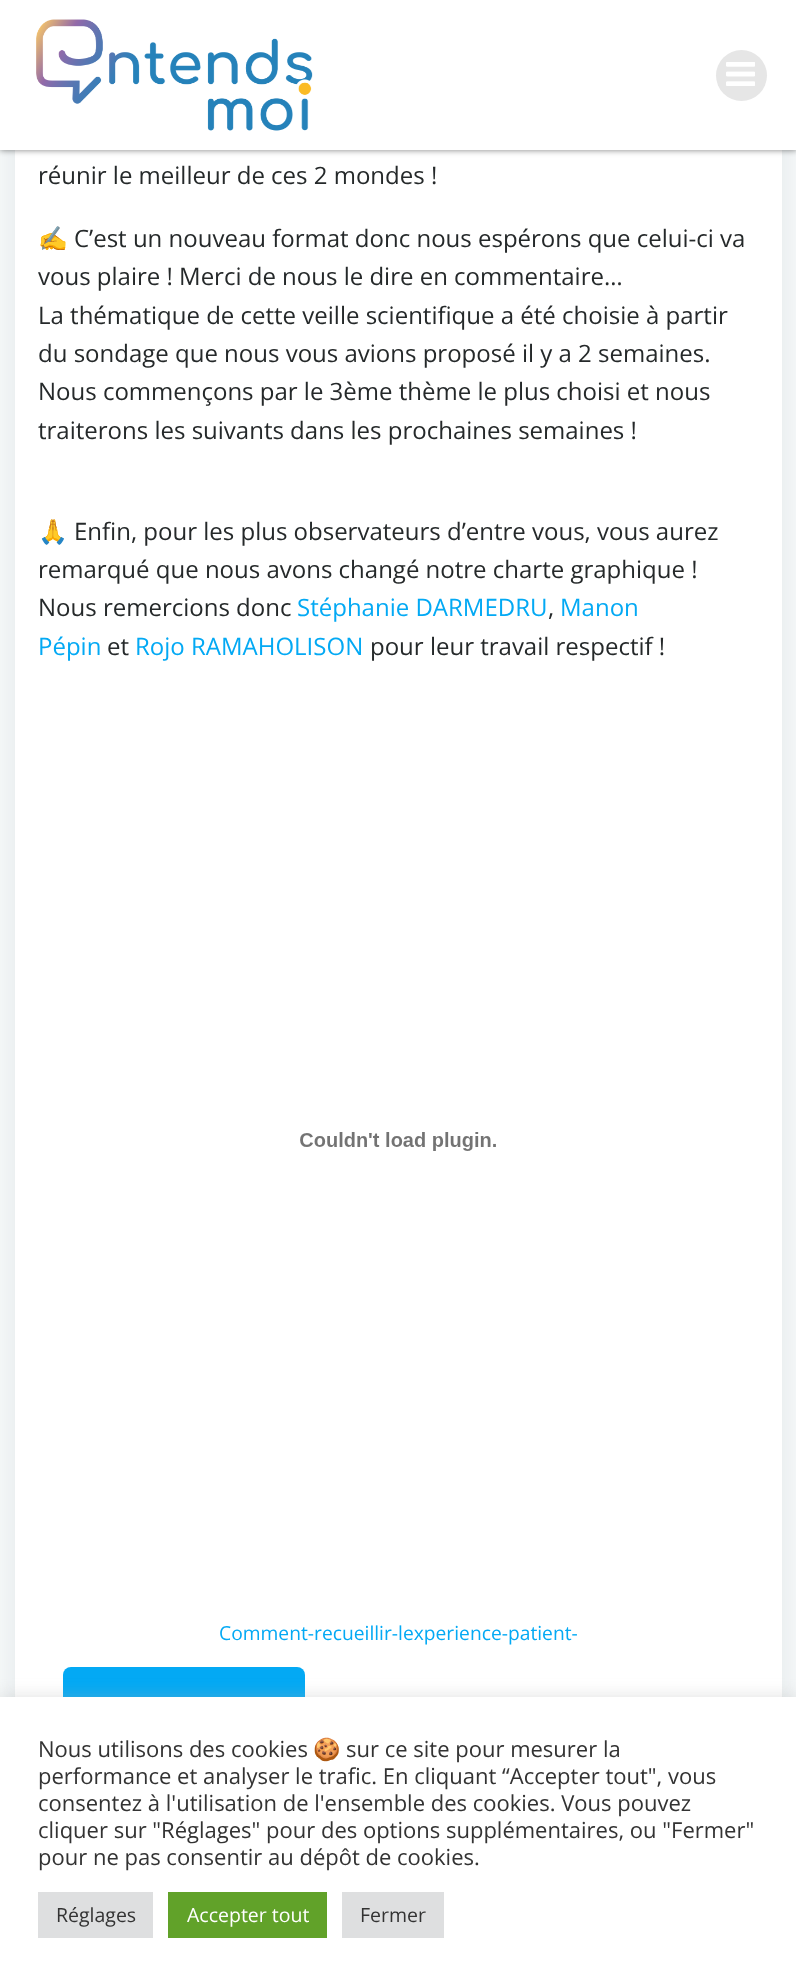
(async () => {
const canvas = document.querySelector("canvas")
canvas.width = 796
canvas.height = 1982
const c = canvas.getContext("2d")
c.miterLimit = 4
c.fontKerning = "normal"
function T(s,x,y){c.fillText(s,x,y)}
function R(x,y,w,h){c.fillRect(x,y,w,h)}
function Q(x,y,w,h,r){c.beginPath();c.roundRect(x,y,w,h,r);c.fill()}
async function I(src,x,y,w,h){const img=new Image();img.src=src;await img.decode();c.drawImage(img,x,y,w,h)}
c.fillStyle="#fff"
R(0,0,796,1982)
c.fillStyle="#01334a26"
c.filter="blur(30px)"
c.beginPath()
c.roundRect(15,-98,767,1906,8)
c.fill()
c.filter="none"
c.fillStyle="#fff"
R(15,150,767,1547)
c.fillStyle="#00000080"
c.filter="blur(3px)"
c.beginPath()
c.rect(0,0,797,150)
c.fill()
c.filter="none"
c.fillStyle="#fff"
R(0,0,796,150)
await I("1.png",36,19,277,112)
c.fillStyle="#e6e6e6"
c.beginPath()
c.arc(741.5,75.5,25.5,0,7)
c.fill()
await I("2.png",726,62,29,24)
c.font="24px Open Sans"
c.fillStyle="#25292a"
T("réunir le meilleur de ces 2 mondes !",38,184)
c.font="24px Noto Color Emoji"
T("✍️",38,247)
c.font="24px Open Sans"
T("C’est un nouveau format donc nous espérons que celui-ci va",74,247)
T("vous plaire ! Merci de nous le dire en commentaire…",38,285)
T("La thématique de cette veille scientifique a été choisie à partir",38,324)
T("du sondage que nous vous avions proposé il y a 2 semaines.",38,362)
T("Nous commençons par le 3ème thème le plus choisi et nous",38,400)
T("traiterons les suivants dans les prochaines semaines !",38,439)
c.font="24px Noto Color Emoji"
T("🙏",38,540)
c.font="24px Open Sans"
T("Enfin, pour les plus observateurs d’entre vous, vous aurez",74,540)
T("remarqué que nous avons changé notre charte graphique !",38,578)
T("Nous remercions donc",38,616)
c.fillStyle="#03a9f4"
T("Stéphanie DARMEDRU",297,616)
c.fillStyle="#25292a"
T(",",548,616)
c.fillStyle="#03a9f4"
T("Manon",560,616)
T("Pépin",38,655)
c.fillStyle="#25292a"
T("et",107,655)
c.fillStyle="#03a9f4"
T("Rojo RAMAHOLISON",135,655)
c.fillStyle="#25292a"
T("pour leur travail respectif !",370,655)
await I("3.png",300,1132,196,19)
c.font="19.25px Open Sans"
c.fillStyle="#03a9f4"
T("Comment-recueillir-lexperience-patient-",219,1640)
Q(63,1667,242,75,8)
c.fillStyle="#acabab4d"
c.filter="blur(7.5px)"
c.beginPath()
c.rect(0,1695,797,287)
c.fill()
c.filter="none"
c.fillStyle="#fff"
R(0,1697,796,285)
c.font="22px Open Sans"
c.fillStyle="#333"
T("Nous utilisons des cookies",38,1757)
c.font="22px Noto Color Emoji"
T("🍪",313,1757)
c.font="22px Open Sans"
T("sur ce site pour mesurer la",346,1757)
T("performance et analyser le trafic. En cliquant “Accepter tout\", vous",38,1784)
T("consentez à l'utilisation de l'ensemble des cookies. Vous pouvez",38,1811)
T("cliquer sur \"Réglages\" pour des options supplémentaires, ou \"Fermer\"",38,1838)
T("pour ne pas consentir au dépôt de cookies.",38,1865)
c.fillStyle="#dedfe0"
R(38,1892,115,46)
c.font="19.5px Open Sans"
c.fillStyle="#333"
T("Réglages",56,1922)
c.fillStyle="#61a229"
R(168,1892,159,46)
c.fillStyle="#fff"
T("Accepter tout",187,1922)
c.fillStyle="#dedfe0"
R(342,1892,102,46)
c.fillStyle="#333"
T("Fermer",360,1922)
})()
